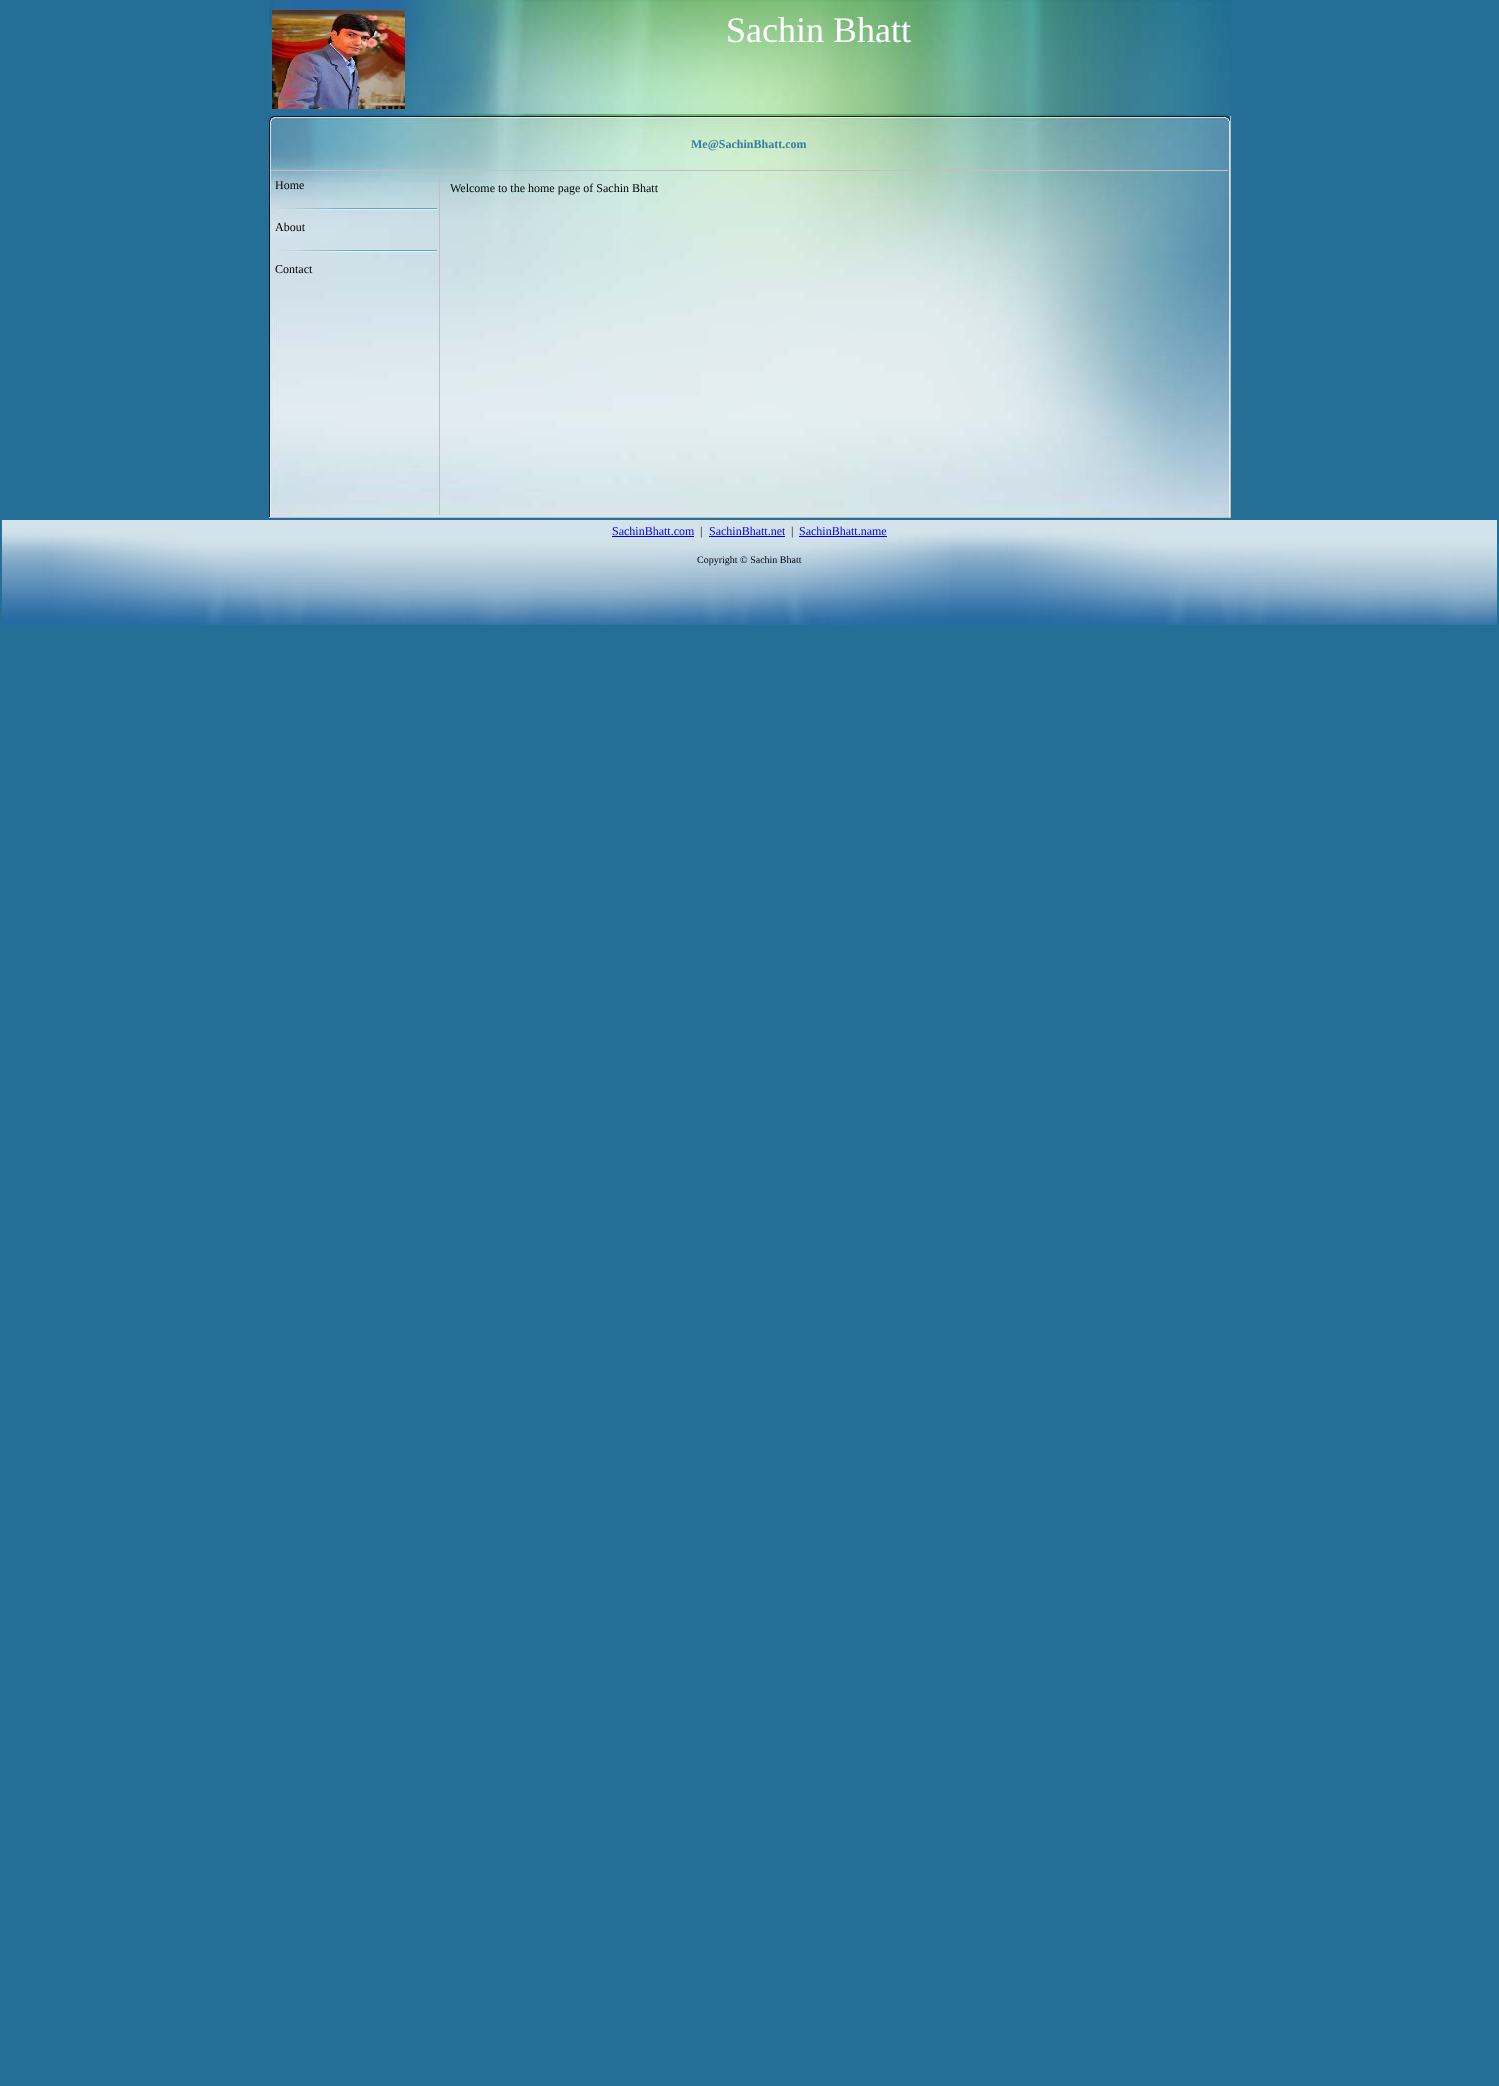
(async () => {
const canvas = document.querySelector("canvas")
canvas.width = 1499
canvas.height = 2086
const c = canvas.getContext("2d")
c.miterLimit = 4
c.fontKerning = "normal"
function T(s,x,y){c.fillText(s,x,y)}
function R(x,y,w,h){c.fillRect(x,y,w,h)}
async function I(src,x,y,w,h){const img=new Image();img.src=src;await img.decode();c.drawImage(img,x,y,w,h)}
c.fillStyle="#256f96"
R(0,0,1499,2086)
await I("1.png",269,0,962,116)
await I("2.png",272,10,133,99)
c.font="36px Liberation Serif"
c.fillStyle="#fff"
T("Sachin Bhatt",726,42)
await I("3.png",269,116,961,401)
c.fillStyle="#c0c0c0"
R(1230,116,1,402)
R(269,517,962,1)
R(271,170,957,1)
c.font="bold 12px Liberation Serif"
c.fillStyle="#347e9b"
T("Me@SachinBhatt.com",691,148)
c.fillStyle="#c0c0c0"
R(439,173,1,342)
c.font="12px Liberation Serif"
c.fillStyle="#000"
T("Home",275,189)
await I("4.png",276,208,161,2)
T("About",275,231)
await I("5.png",276,250,161,2)
T("Contact",275,273)
T("Welcome to the home page of Sachin Bhatt",450,192)
await I("6.png",2,520,1495,105)
c.fillStyle="#00e"
T("SachinBhatt.com",612,535)
R(612,536,82,1)
c.fillStyle="#000"
T("|",700,535)
c.fillStyle="#00e"
T("SachinBhatt.net",709,535)
R(709,536,76,1)
c.fillStyle="#000"
T("|",791,535)
c.fillStyle="#00e"
T("SachinBhatt.name",799,535)
R(799,536,88,1)
c.font="10px Liberation Serif"
c.fillStyle="#000"
T("Copyright © Sachin Bhatt",697,563)
})()
